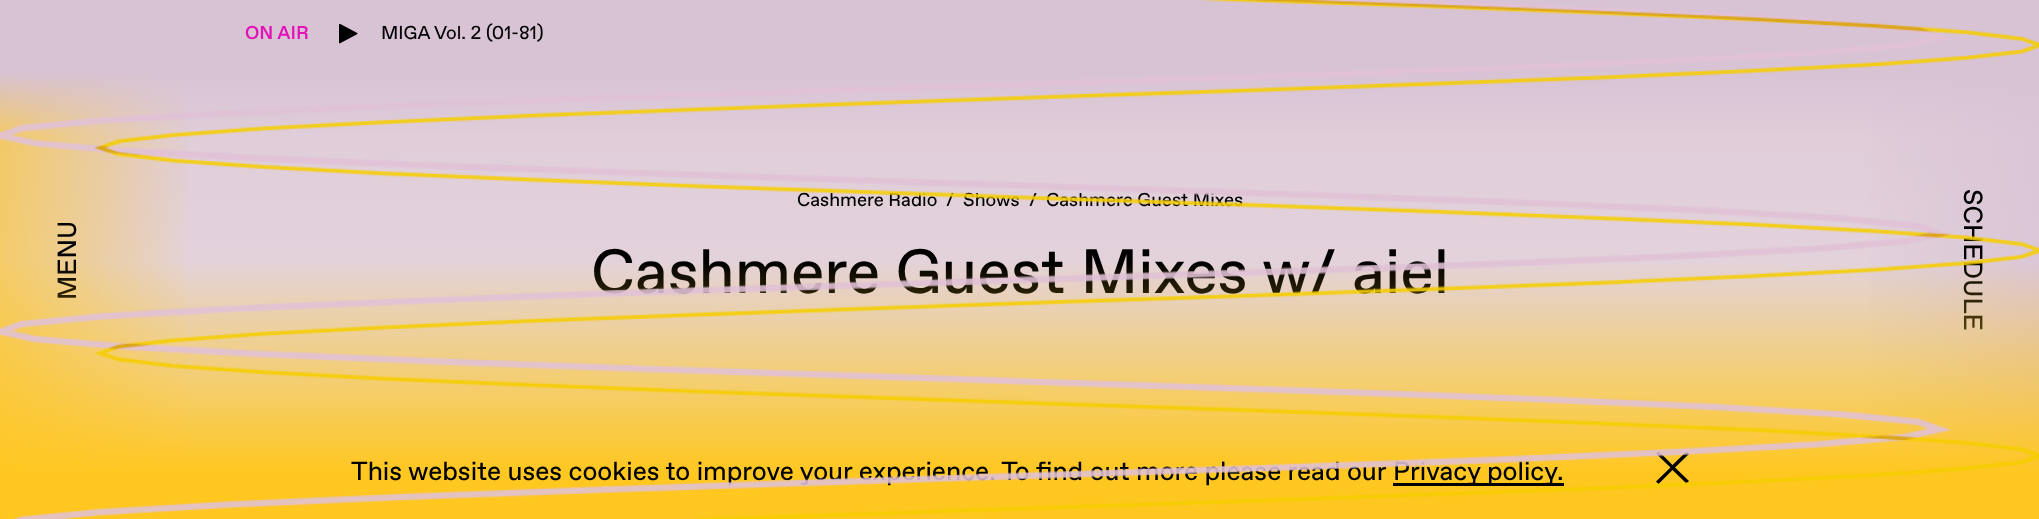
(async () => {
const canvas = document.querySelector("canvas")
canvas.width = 2039
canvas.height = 519
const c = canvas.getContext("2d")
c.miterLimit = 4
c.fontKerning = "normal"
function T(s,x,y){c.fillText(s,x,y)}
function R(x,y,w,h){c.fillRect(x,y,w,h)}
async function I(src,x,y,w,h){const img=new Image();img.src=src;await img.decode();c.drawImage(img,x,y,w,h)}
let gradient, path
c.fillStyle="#fff"
R(0,0,2039,519)
gradient = c.createLinearGradient(1020,0,1020,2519)
gradient.addColorStop(0,"#dcc8d7")
gradient.addColorStop(.54,"#fffce9")
gradient.addColorStop(1,"#ffc720")
c.fillStyle = gradient
R(0,72,2039,400)
gradient = c.createLinearGradient(-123,260,200,260)
gradient.addColorStop(0,"#ffc720")
gradient.addColorStop(.98,"#ffc72000")
c.fillStyle = gradient
R(0,72,187,400)
gradient = c.createLinearGradient(1840,260,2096,260)
gradient.addColorStop(.01,"#d8c3d500")
gradient.addColorStop(1,"#d8c3d5")
c.fillStyle = gradient
R(1870,72,169,400)
gradient = c.createLinearGradient(1020,0,1020,143)
gradient.addColorStop(.5,"#d8c3d5")
gradient.addColorStop(.95,"#d8c3d500")
c.fillStyle = gradient
R(0,0,2039,134)
c.font="500 18.75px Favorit"
c.fillStyle="#e311b8"
T("ON AIR",245,39)
await I("2.png",339,24,19,20)
c.font="18.75px Favorit"
c.fillStyle="#000"
T("MIGA Vol. 2 (01-81)",381,39)
c.font="26.25px Favorit"
c.save()
c.translate(76,300)
c.rotate(-90 * Math.PI / 180)
c.fillText("MENU",0,0)
c.restore()
c.font="18.75px Favorit"
T("Cashmere Radio",797,206)
T("/",946,206)
T("Shows",963,206)
T("/",1029,206)
T("Cashmere Guest Mixes",1046,206)
c.font="62.5px Favorit"
T("Cashmere Guest Mixes w/ aiel",591,293)
c.font="26.25px Favorit"
c.save()
c.translate(1964,189)
c.rotate(90 * Math.PI / 180)
c.fillText("SCHEDULE",0,0)
c.restore()
gradient = c.createLinearGradient(1020,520,1020,260)
gradient.addColorStop(.18,"#ffc720")
gradient.addColorStop(1,"#ffc72000")
c.fillStyle = gradient
R(0,265,2039,254)
c.fillStyle="#000"
T("This website uses cookies to improve your experience. To find out more please read our",351,480)
R(1393,483,171,3)
T("Privacy policy.",1393,480)
path = new Path2D("M1658.5 451l-2.5 2.5l14.5 14l-14.5 14l2.5 2.5l14-14l14 13.5l2.5-2.5l-14-13.5l14-13.5l-2.5-2.5l-14 13.5z")
c.fill(path,"evenodd")
await I("1.png",0,0,2039,519)
})()
